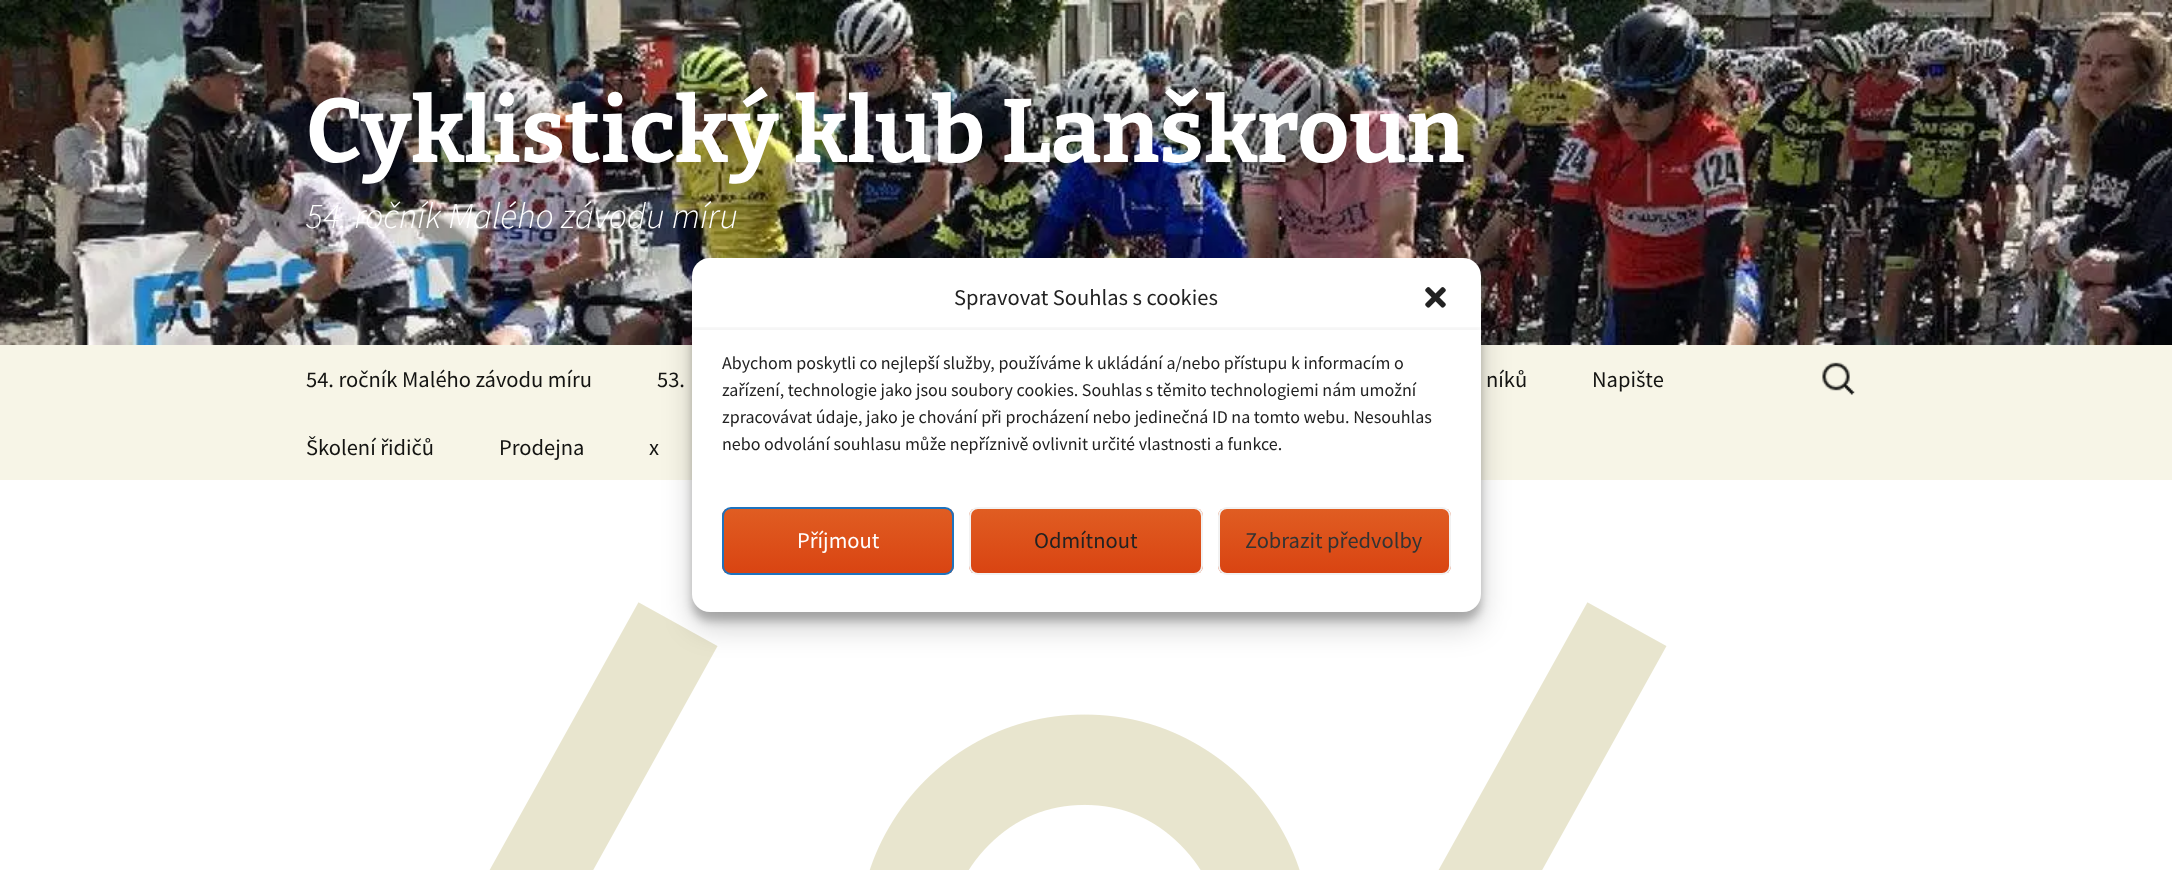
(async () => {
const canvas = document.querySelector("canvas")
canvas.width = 2172
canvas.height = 870
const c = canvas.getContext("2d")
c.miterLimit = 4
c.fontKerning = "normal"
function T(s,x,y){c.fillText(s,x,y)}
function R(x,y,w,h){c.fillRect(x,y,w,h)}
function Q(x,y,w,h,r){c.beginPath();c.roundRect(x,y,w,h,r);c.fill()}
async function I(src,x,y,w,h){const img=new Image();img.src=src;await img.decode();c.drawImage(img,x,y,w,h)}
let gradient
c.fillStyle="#fff"
R(0,0,2172,870)
await I("1.png",0,0,2172,345)
c.font="bold 90px Bitter"
T("Cyklistický klub Lanškroun",306,162)
c.font="italic 300 36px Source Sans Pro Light"
T("54. ročník Malého závodu míru",306,228)
c.fillStyle="#f7f5e7"
R(0,345,2172,135)
c.font="22.5px Source Sans Pro"
c.fillStyle="#141412"
T("54. ročník Malého závodu míru",306,387)
T("53.",657,387)
T("níků",1486,387)
T("Napište",1592,387)
T("Školení řidičů",306,455)
T("Prodejna",499,455)
T("x",649,455)
await I("2.png",1822,362,33,33)
await I("3.png",489,602,1178,268)
c.fillStyle="#0000003b"
c.filter="blur(4.5px)"
c.beginPath()
c.roundRect(692,267,789,354,18)
c.fill()
c.filter="none"
c.fillStyle="#00000030"
c.filter="blur(15px)"
c.beginPath()
c.roundRect(692,273,789,354,18)
c.fill()
c.filter="none"
c.fillStyle="#fff"
Q(692,258,789,354,18)
c.fillStyle="#222"
T("Spravovat Souhlas s cookies",954,305)
await I("4.png",1425,287,21,21)
c.save()
c.beginPath()
c.rect(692,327,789,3)
c.clip()
c.fillStyle="#0000000d"
c.filter="blur(2px)"
c.beginPath()
c.rect(692,327,789,5)
c.fill()
c.filter="none"
c.restore()
c.font="18px Source Sans Pro"
T("Abychom poskytli co nejlepší služby, používáme k ukládání a/nebo přístupu k informacím o",722,369)
T("zařízení, technologie jako jsou soubory cookies. Souhlas s těmito technologiemi nám umožní",722,396)
T("zpracovávat údaje, jako je chování při procházení nebo jedinečná ID na tomto webu. Nesouhlas",722,423)
T("nebo odvolání souhlasu může nepříznivě ovlivnit určité vlastnosti a funkce.",722,450)
c.save()
c.beginPath()
c.roundRect(722,507,232,68,9)
c.clip()
gradient = c.createLinearGradient(838,509,838,573)
gradient.addColorStop(0,"#e05d22")
gradient.addColorStop(1,"#d94412")
c.fillStyle = gradient
R(722,509,232,64)
c.restore()
c.beginPath()
c.roundRect(723,508,230,66,8)
c.strokeStyle="#1e73be"
c.lineWidth=2
c.stroke()
c.font="22.5px Source Sans Pro"
c.fillStyle="#fff"
T("Příjmout",797,548)
c.save()
c.beginPath()
c.roundRect(969,507,234,68,9)
c.clip()
gradient = c.createLinearGradient(1086,509,1086,573)
gradient.addColorStop(0,"#e05d22")
gradient.addColorStop(1,"#d94412")
c.fillStyle = gradient
R(969,509,234,64)
c.restore()
c.beginPath()
c.roundRect(970,508,232,66,8)
c.strokeStyle="#f2f2f2"
c.stroke()
c.fillStyle="#222"
T("Odmítnout",1034,548)
c.save()
c.beginPath()
c.roundRect(1218,507,233,68,9)
c.clip()
gradient = c.createLinearGradient(1334,509,1334,573)
gradient.addColorStop(0,"#e05d22")
gradient.addColorStop(1,"#d94412")
c.fillStyle = gradient
R(1218,509,233,64)
c.restore()
c.beginPath()
c.roundRect(1219,508,231,66,8)
c.stroke()
c.fillStyle="#333"
T("Zobrazit předvolby",1245,548)
})()
